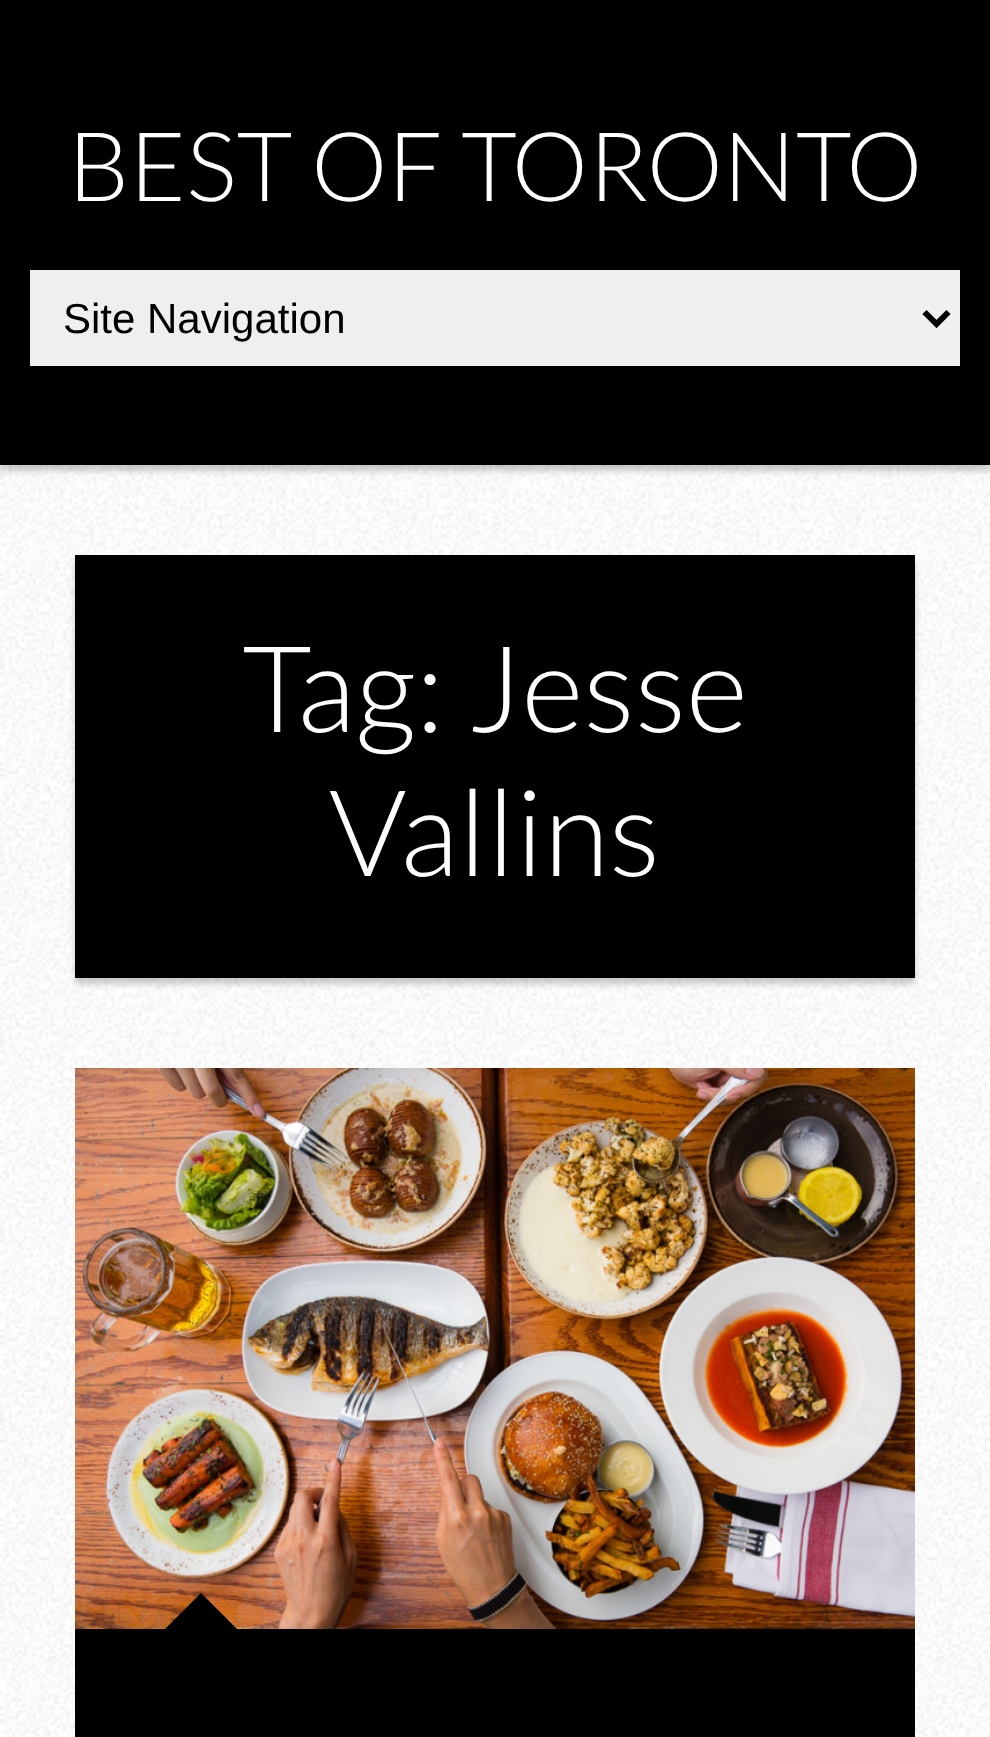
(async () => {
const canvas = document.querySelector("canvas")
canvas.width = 990
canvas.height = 1737
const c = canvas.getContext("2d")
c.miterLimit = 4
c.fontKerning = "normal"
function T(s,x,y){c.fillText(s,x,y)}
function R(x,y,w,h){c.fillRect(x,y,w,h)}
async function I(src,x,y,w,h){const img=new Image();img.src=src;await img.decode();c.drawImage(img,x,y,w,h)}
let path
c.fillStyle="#fff"
R(0,0,990,1737)
await I("1.png",0,465,990,1272)
c.fillStyle="#00000033"
c.filter="blur(3px)"
c.beginPath()
c.rect(0,6,990,465)
c.fill()
c.filter="none"
c.fillStyle="#000"
R(0,0,990,465)
c.font="300 96px Lato"
c.fillStyle="#fff"
T("BEST OF TORONTO",68,201)
c.fillStyle="#efefef"
R(30,270,930,96)
path = new Path2D("M924.5 312l12 12l12-12")
c.strokeStyle="#000"
c.lineWidth=6
c.stroke(path)
c.font="42px Liberation Sans"
c.fillStyle="#000"
T("Site Navigation",63,333)
c.fillStyle="#00000033"
c.filter="blur(3px)"
c.beginPath()
c.rect(75,561,840,423)
c.fill()
c.filter="none"
c.fillStyle="#000"
R(75,555,840,423)
c.font="300 120px Lato"
c.fillStyle="#fff"
T("Tag: Jesse",242,732)
T("Vallins",329,876)
await I("2.png",75,1068,840,561)
c.fillStyle="#000"
R(75,1629,840,108)
path = new Path2D("M237 1629h-72l36-36z")
c.fill(path)
})()
